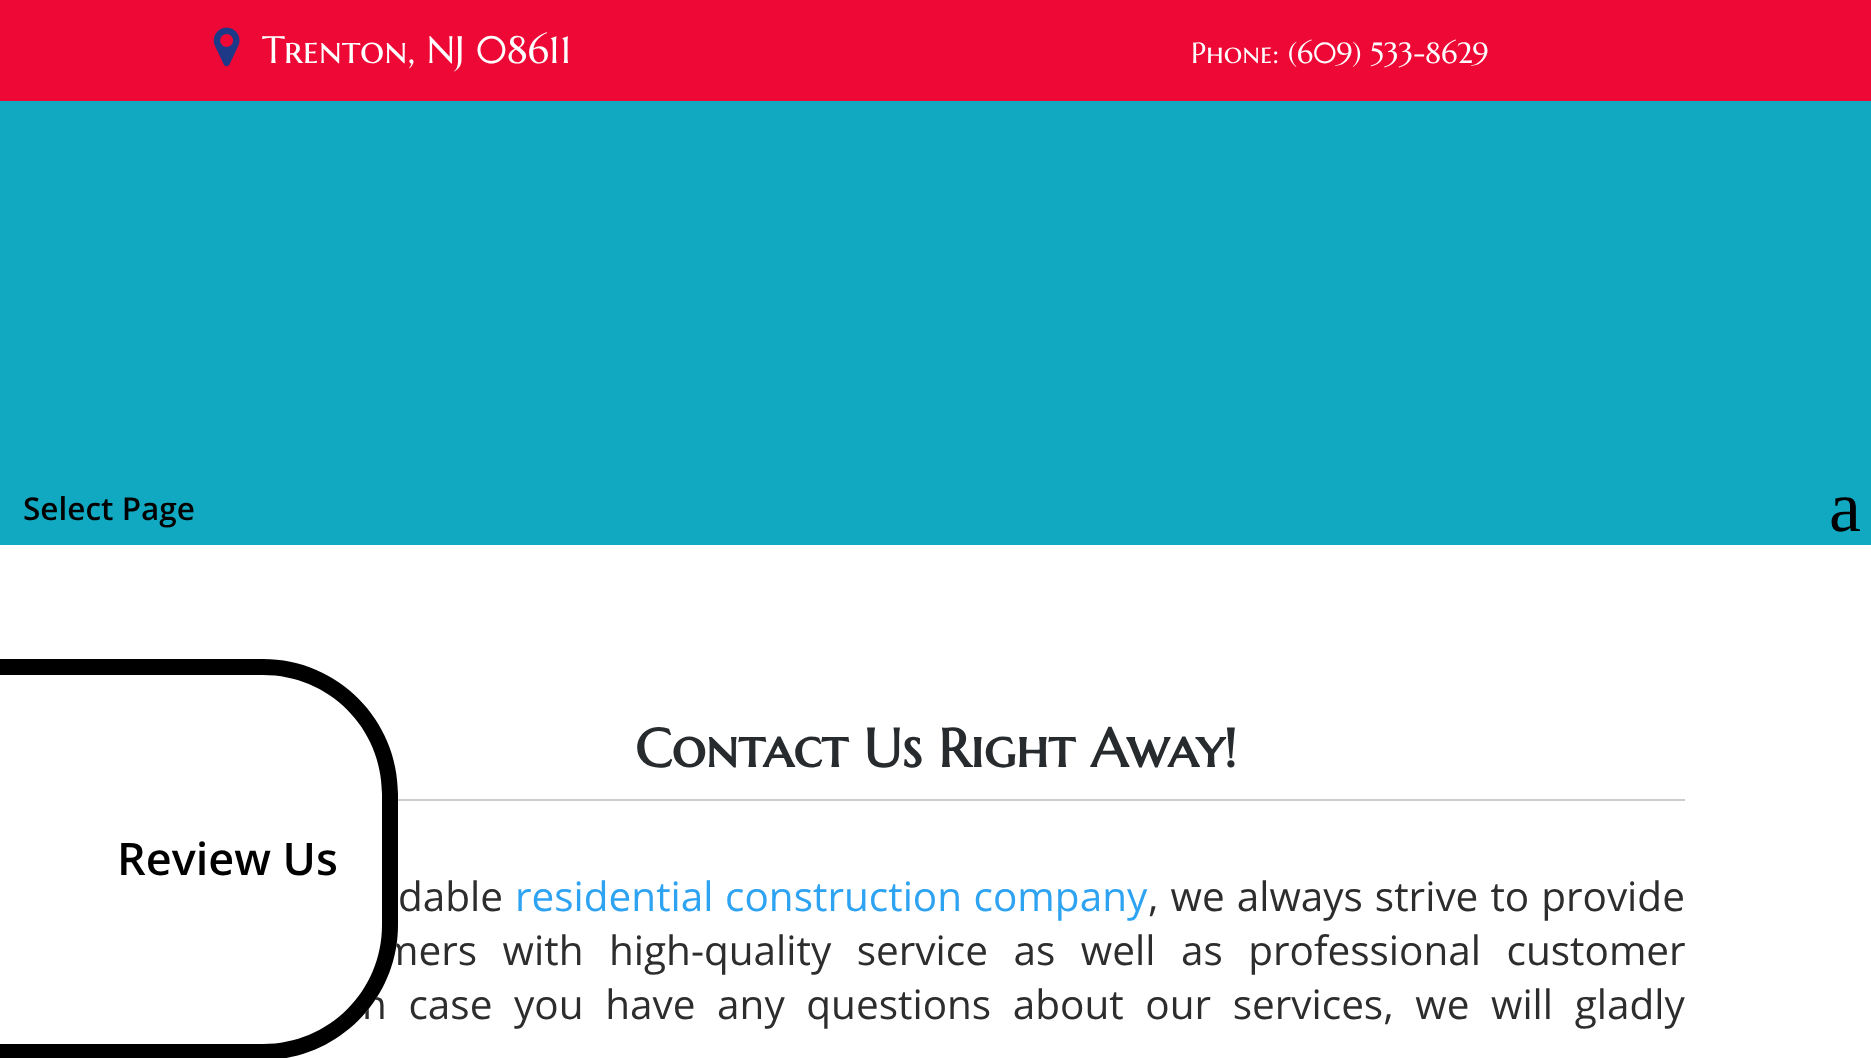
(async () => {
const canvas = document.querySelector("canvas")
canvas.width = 1871
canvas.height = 1058
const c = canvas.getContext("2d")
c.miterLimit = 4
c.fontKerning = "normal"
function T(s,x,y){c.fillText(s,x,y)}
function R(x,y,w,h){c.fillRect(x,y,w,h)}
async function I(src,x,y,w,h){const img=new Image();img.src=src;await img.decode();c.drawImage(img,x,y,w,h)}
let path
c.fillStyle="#fff"
R(0,0,1871,1058)
c.fillStyle="#ee0835"
R(0,0,1871,101)
await I("1.png",213,27,27,40)
c.font="38.25px Marcellus SC"
c.fillStyle="#fff"
T("Trenton, NJ 08611",262,63)
c.font="29.25px Marcellus SC"
T("Phone: (609) 533-8629",1191,63)
c.fillStyle="#11a9c1"
R(0,101,1871,444)
c.font="600 31.5px Open Sans"
c.fillStyle="#000"
T("Select Page",23,520)
c.font="72px Liberation Serif"
T("a",1829,531)
c.wordSpacing="15px"
c.font="40.5px Open Sans"
c.fillStyle="#2d2d2d"
T("mers with high-quality service as well as professional customer",381,965)
c.wordSpacing="11.1px"
T("n case you have any questions about our services, we will gladly",362,1019)
c.fillStyle="#fff"
path = new Path2D("M0 659h263c74.5 0 135 60.5 135 135v131c0 74.5-60.5 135-135 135h-263z")
c.fill(path)
c.fillStyle="#000"
path = new Path2D("M0 659h263c75 0 135 61 135 135v131c0 74-60 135-135 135h-263zm0 16h263c66 0 119 53 119 119v131c0 66-53 119-119 119h-263z")
c.fill(path,"evenodd")
c.wordSpacing="0px"
c.font="600 45px Open Sans"
T("Review Us",117,875)
c.fillStyle="#ccc"
R(398,799,1287,2)
c.font="bold 54px Marcellus SC"
c.fillStyle="#272b2e"
T("Contact Us Right Away!",635,767)
c.wordSpacing="1.5px"
c.font="40.5px Open Sans"
c.fillStyle="#2d2d2d"
T("dable",398,911)
c.wordSpacing="1px"
c.fillStyle="#2ea3f2"
T("residential construction company",515,911)
c.wordSpacing="1.5px"
c.fillStyle="#2d2d2d"
T(", we always strive to provide",1148,911)
})()
